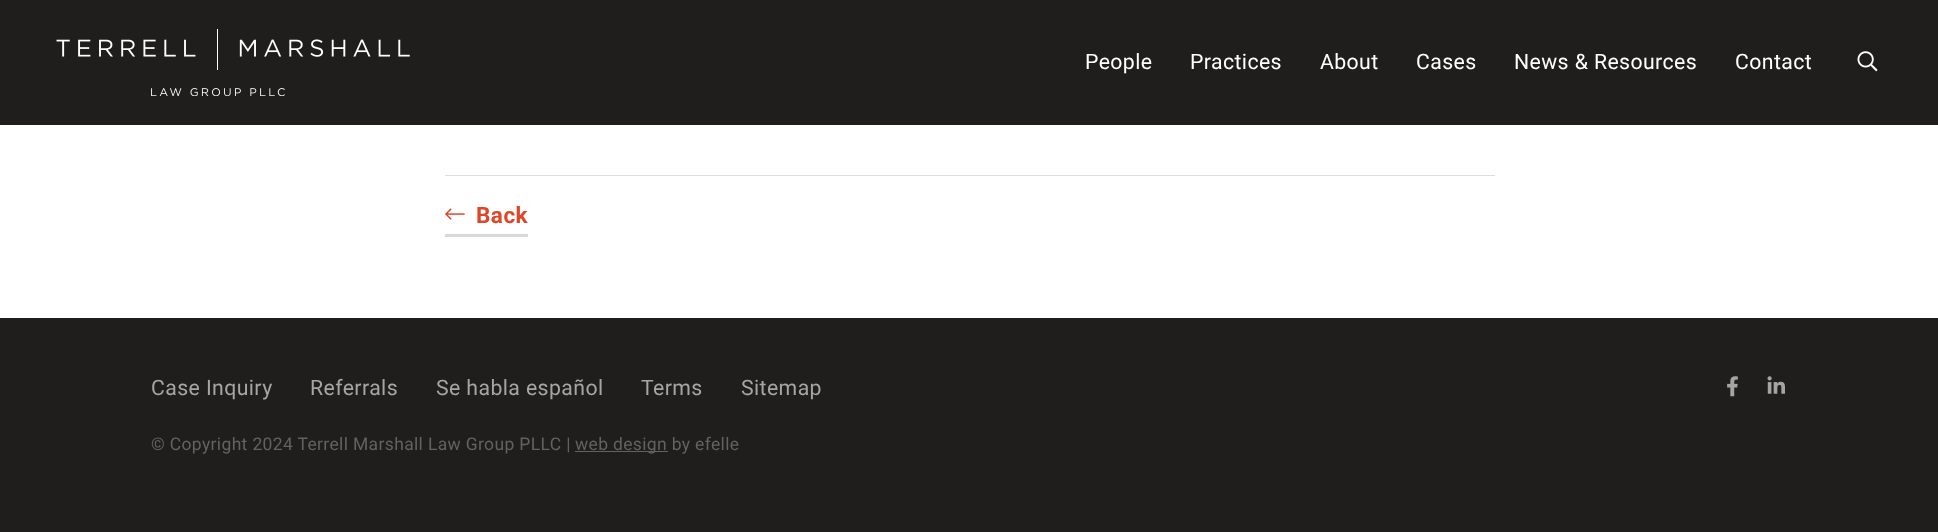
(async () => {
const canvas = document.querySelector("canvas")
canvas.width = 1938
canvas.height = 532
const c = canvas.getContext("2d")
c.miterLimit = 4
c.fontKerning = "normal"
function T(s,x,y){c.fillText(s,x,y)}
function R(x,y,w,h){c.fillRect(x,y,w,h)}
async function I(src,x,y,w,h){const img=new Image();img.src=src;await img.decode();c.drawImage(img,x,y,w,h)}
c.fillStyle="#fff"
R(0,0,1938,532)
c.fillStyle="#201d1d"
R(0,0,1938,125)
await I("1.png",56,29,354,67)
c.letterSpacing="0.4px"
c.font="21.25px Roboto"
c.fillStyle="#fff"
T("People",1085,69)
T("Practices",1190,69)
T("About",1320,69)
T("Cases",1416,69)
T("News & Resources",1514,69)
T("Contact",1735,69)
await I("2.png",1857,51,21,21)
c.fillStyle="#dddee0"
R(445,175,1050,1)
await I("3.png",445,208,20,12)
c.letterSpacing="0.5px"
c.font="bold 22.5px Roboto"
c.fillStyle="#df4527"
T("Back",476,223)
c.fillStyle="#d9d9d9"
R(445,234,83,3)
c.fillStyle="#201d1d"
R(0,318,1938,214)
c.letterSpacing="0.4px"
c.font="21.25px Roboto"
c.fillStyle="#a6a5a5"
T("Case Inquiry",151,395)
T("Referrals",310,395)
T("Se habla español",436,395)
T("Terms",641,395)
T("Sitemap",741,395)
await I("4.png",1727,376,11,21)
await I("5.png",1767,376,18,18)
c.letterSpacing="0.35px"
c.font="17.5px Roboto"
c.fillStyle="#636161"
T("© Copyright 2024 Terrell Marshall Law Group PLLC |",151,450)
R(575,451,93,1)
T("web design by efelle",575,450)
})()
